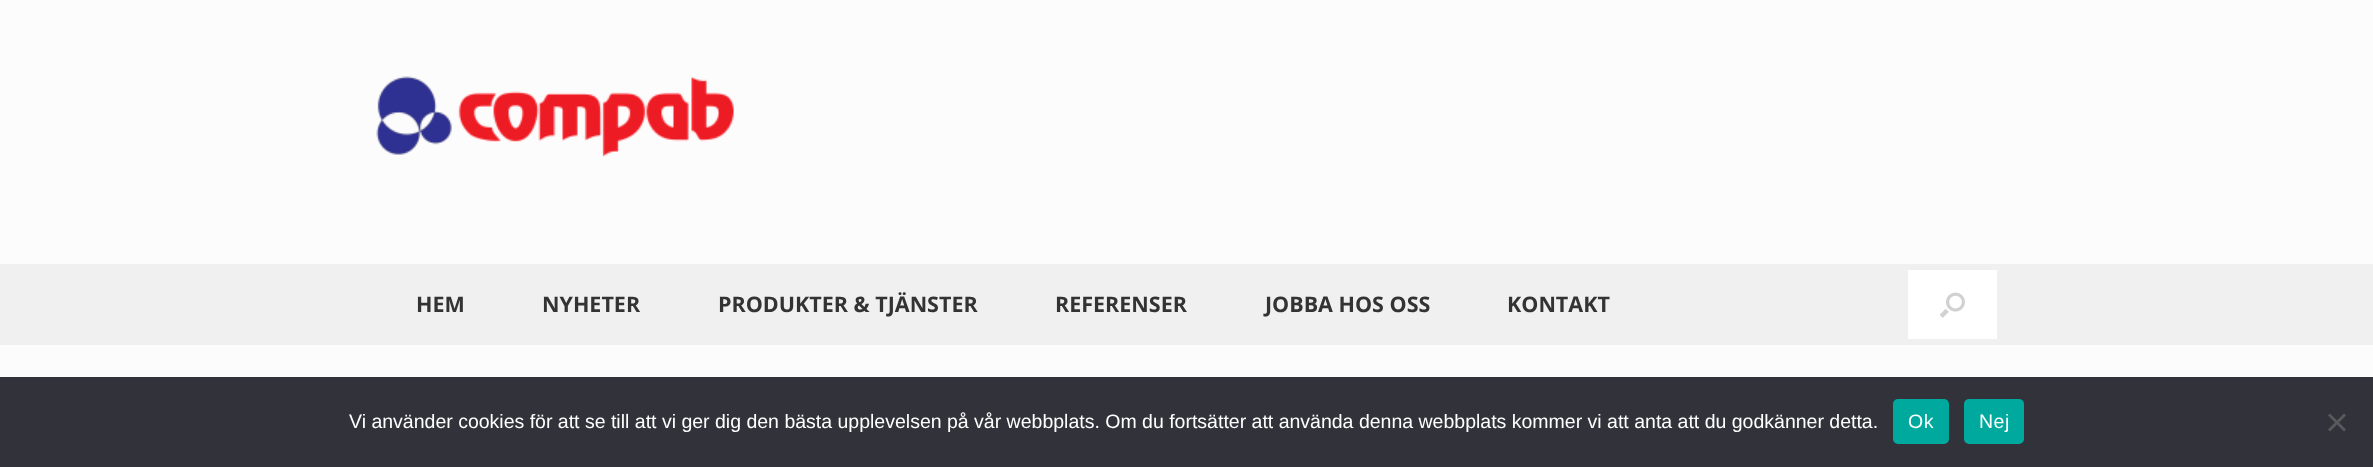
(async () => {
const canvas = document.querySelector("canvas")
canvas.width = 2373
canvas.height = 467
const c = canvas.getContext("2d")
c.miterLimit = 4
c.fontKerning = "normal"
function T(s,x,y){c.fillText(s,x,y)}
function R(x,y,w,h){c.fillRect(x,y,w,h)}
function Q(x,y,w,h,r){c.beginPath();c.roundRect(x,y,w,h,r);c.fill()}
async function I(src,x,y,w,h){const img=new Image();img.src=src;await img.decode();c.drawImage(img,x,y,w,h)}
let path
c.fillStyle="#fcfcfc"
R(0,0,2373,467)
await I("1.png",376,76,358,81)
c.fillStyle="#f0f0f0"
R(0,264,2373,81)
c.font="bold 21.5px Open Sans"
c.fillStyle="#333"
T("HEM",416,312)
T("NYHETER",542,312)
T("PRODUKTER & TJÄNSTER",718,312)
T("REFERENSER",1055,312)
T("JOBBA HOS OSS",1265,312)
T("KONTAKT",1507,312)
c.fillStyle="#fff"
R(1908,270,89,69)
await I("2.png",1939,292,26,26)
c.fillStyle="#32323a"
R(0,377,2373,90)
c.font="19.5px Liberation Sans"
c.fillStyle="#fff"
T("Vi använder cookies för att se till att vi ger dig den bästa upplevelsen på vår webbplats. Om du fortsätter att använda denna webbplats kommer vi att anta att du godkänner detta.",349,428)
c.fillStyle="#00a99d"
Q(1893,399,56,45,5)
c.letterSpacing="0.5px"
c.fillStyle="#fff"
T("Ok",1908,428)
c.fillStyle="#00a99d"
Q(1964,399,60,45,5)
c.fillStyle="#fff"
T("Nej",1979,428)
c.fillStyle="#59595d"
path = new Path2D("M2344 413.5l2 2l-16 16l-2-2z")
c.fill(path)
path = new Path2D("M2328 415.5l2-2l16 16l-2 2z")
c.fill(path)
})()
